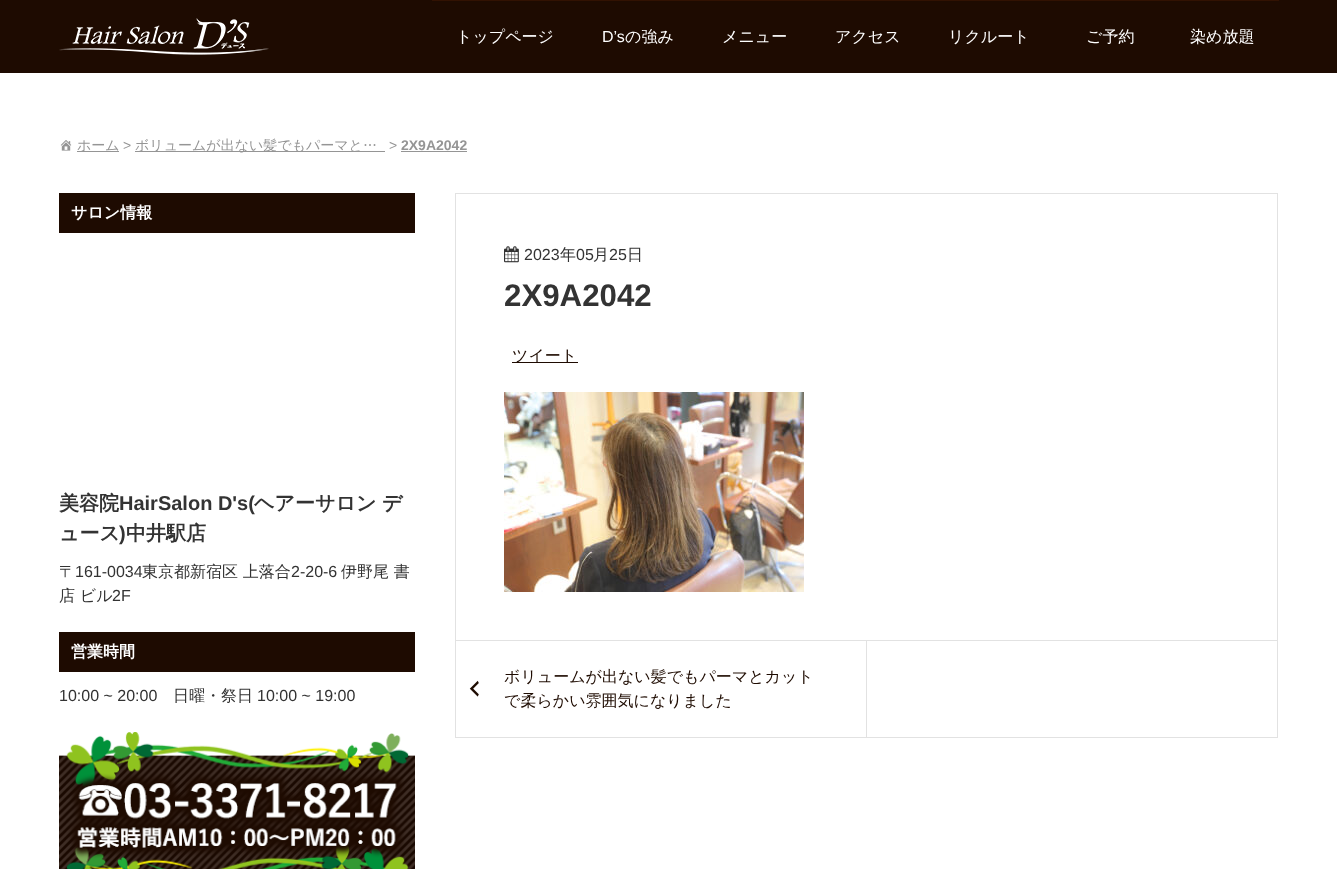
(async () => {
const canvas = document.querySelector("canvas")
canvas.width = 1337
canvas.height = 869
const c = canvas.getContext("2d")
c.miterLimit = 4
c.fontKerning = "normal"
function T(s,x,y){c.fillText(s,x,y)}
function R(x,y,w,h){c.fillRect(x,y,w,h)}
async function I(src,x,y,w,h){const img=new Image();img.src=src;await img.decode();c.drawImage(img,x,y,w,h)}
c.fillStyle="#fff"
R(0,0,1337,869)
c.fillStyle="#1e0b01"
R(0,0,1337,73)
await I("1.png",59,18,210,37)
c.fillStyle="#321202"
R(432,0,847,1)
c.font="500 16px WenQuanYi Zen Hei"
c.fillStyle="#fff"
T("トップページ",456,42)
c.font="16px Liberation Sans"
T("D’s",602,42)
c.font="500 16px WenQuanYi Zen Hei"
T("の強み",625,42)
T("メニュー",722,42)
T("アクセス",835,42)
T("リクルート",948,42)
T("ご予約",1086,42)
T("染め放題",1190,42)
await I("2.png",60,140,12,11)
c.fillStyle="#959595"
R(77,151,42,1)
c.font="500 14px WenQuanYi Zen Hei"
T("ホーム",77,150)
c.font="14px Liberation Sans"
T(">",123,150)
R(135,151,250,1)
c.font="500 14px WenQuanYi Zen Hei"
T("ボリュームが出ない髪でもパーマと…",135,150)
c.font="14px Liberation Sans"
T(">",389,150)
c.font="bold 14px Liberation Sans"
T("2X9A2042",401,150)
R(401,151,66,1)
c.fillStyle="#1e0b01"
R(59,193,356,40)
c.font="bold 16px WenQuanYi Zen Hei"
c.fillStyle="#fff"
T("サロン情報",71,218)
c.font="bold 20px WenQuanYi Zen Hei"
c.fillStyle="#333"
T("美容院",59,510)
c.font="bold 20px Liberation Sans"
T("HairSalon D's(",119,510)
c.font="bold 20px WenQuanYi Zen Hei"
T("ヘアーサロン",254,510)
T("デ",382,510)
T("ュース",59,540)
c.font="bold 20px Liberation Sans"
T(")",119,540)
c.font="bold 20px WenQuanYi Zen Hei"
T("中井駅店",126,540)
c.font="500 16px WenQuanYi Zen Hei"
T("〒",59,577)
c.font="16px Liberation Sans"
T("161-0034",75,577)
c.font="500 16px WenQuanYi Zen Hei"
T("東京都新宿区 上落合",142,577)
c.font="16px Liberation Sans"
T("2-20-6",291,577)
c.font="500 16px WenQuanYi Zen Hei"
T("伊野尾 書",341,577)
T("店 ビル",59,601)
c.font="16px Liberation Sans"
T("2F",112,601)
c.fillStyle="#1e0b01"
R(59,632,356,40)
c.font="bold 16px WenQuanYi Zen Hei"
c.fillStyle="#fff"
T("営業時間",71,657)
c.font="16px Liberation Sans"
c.fillStyle="#333"
T("10:00 ~ 20:00",59,701)
c.font="500 16px WenQuanYi Zen Hei"
T("日曜・祭日",173,701)
c.font="16px Liberation Sans"
T("10:00 ~ 19:00",257,701)
await I("3.png",59,732,356,137)
c.strokeStyle="#e2e2e2"
c.strokeRect(455.5,193.5,822,447)
await I("4.png",504,246,15,17)
T("2023",524,260)
c.font="500 16px WenQuanYi Zen Hei"
T("年",560,260)
c.font="16px Liberation Sans"
T("05",576,260)
c.font="500 16px WenQuanYi Zen Hei"
T("月",593,260)
c.font="16px Liberation Sans"
T("25",609,260)
c.font="500 16px WenQuanYi Zen Hei"
T("日",627,260)
c.font="bold 31.25px Liberation Sans"
T("2X9A2042",504,306)
c.fillStyle="#1e0b01"
R(512,362,66,1)
c.font="500 16px WenQuanYi Zen Hei"
T("ツイート",512,361)
await I("5.png",504,392,300,200)
c.fillStyle="#e2e2e2"
R(1277,641,1,97)
R(455,737,823,1)
R(455,641,1,97)
R(866,641,1,96)
c.fillStyle="#1e0b01"
T("ボリュームが出ない髪でもパーマとカット",504,682)
await I("6.png",469,680,10,17)
T("で柔らかい雰囲気になりました",504,706)
})()
